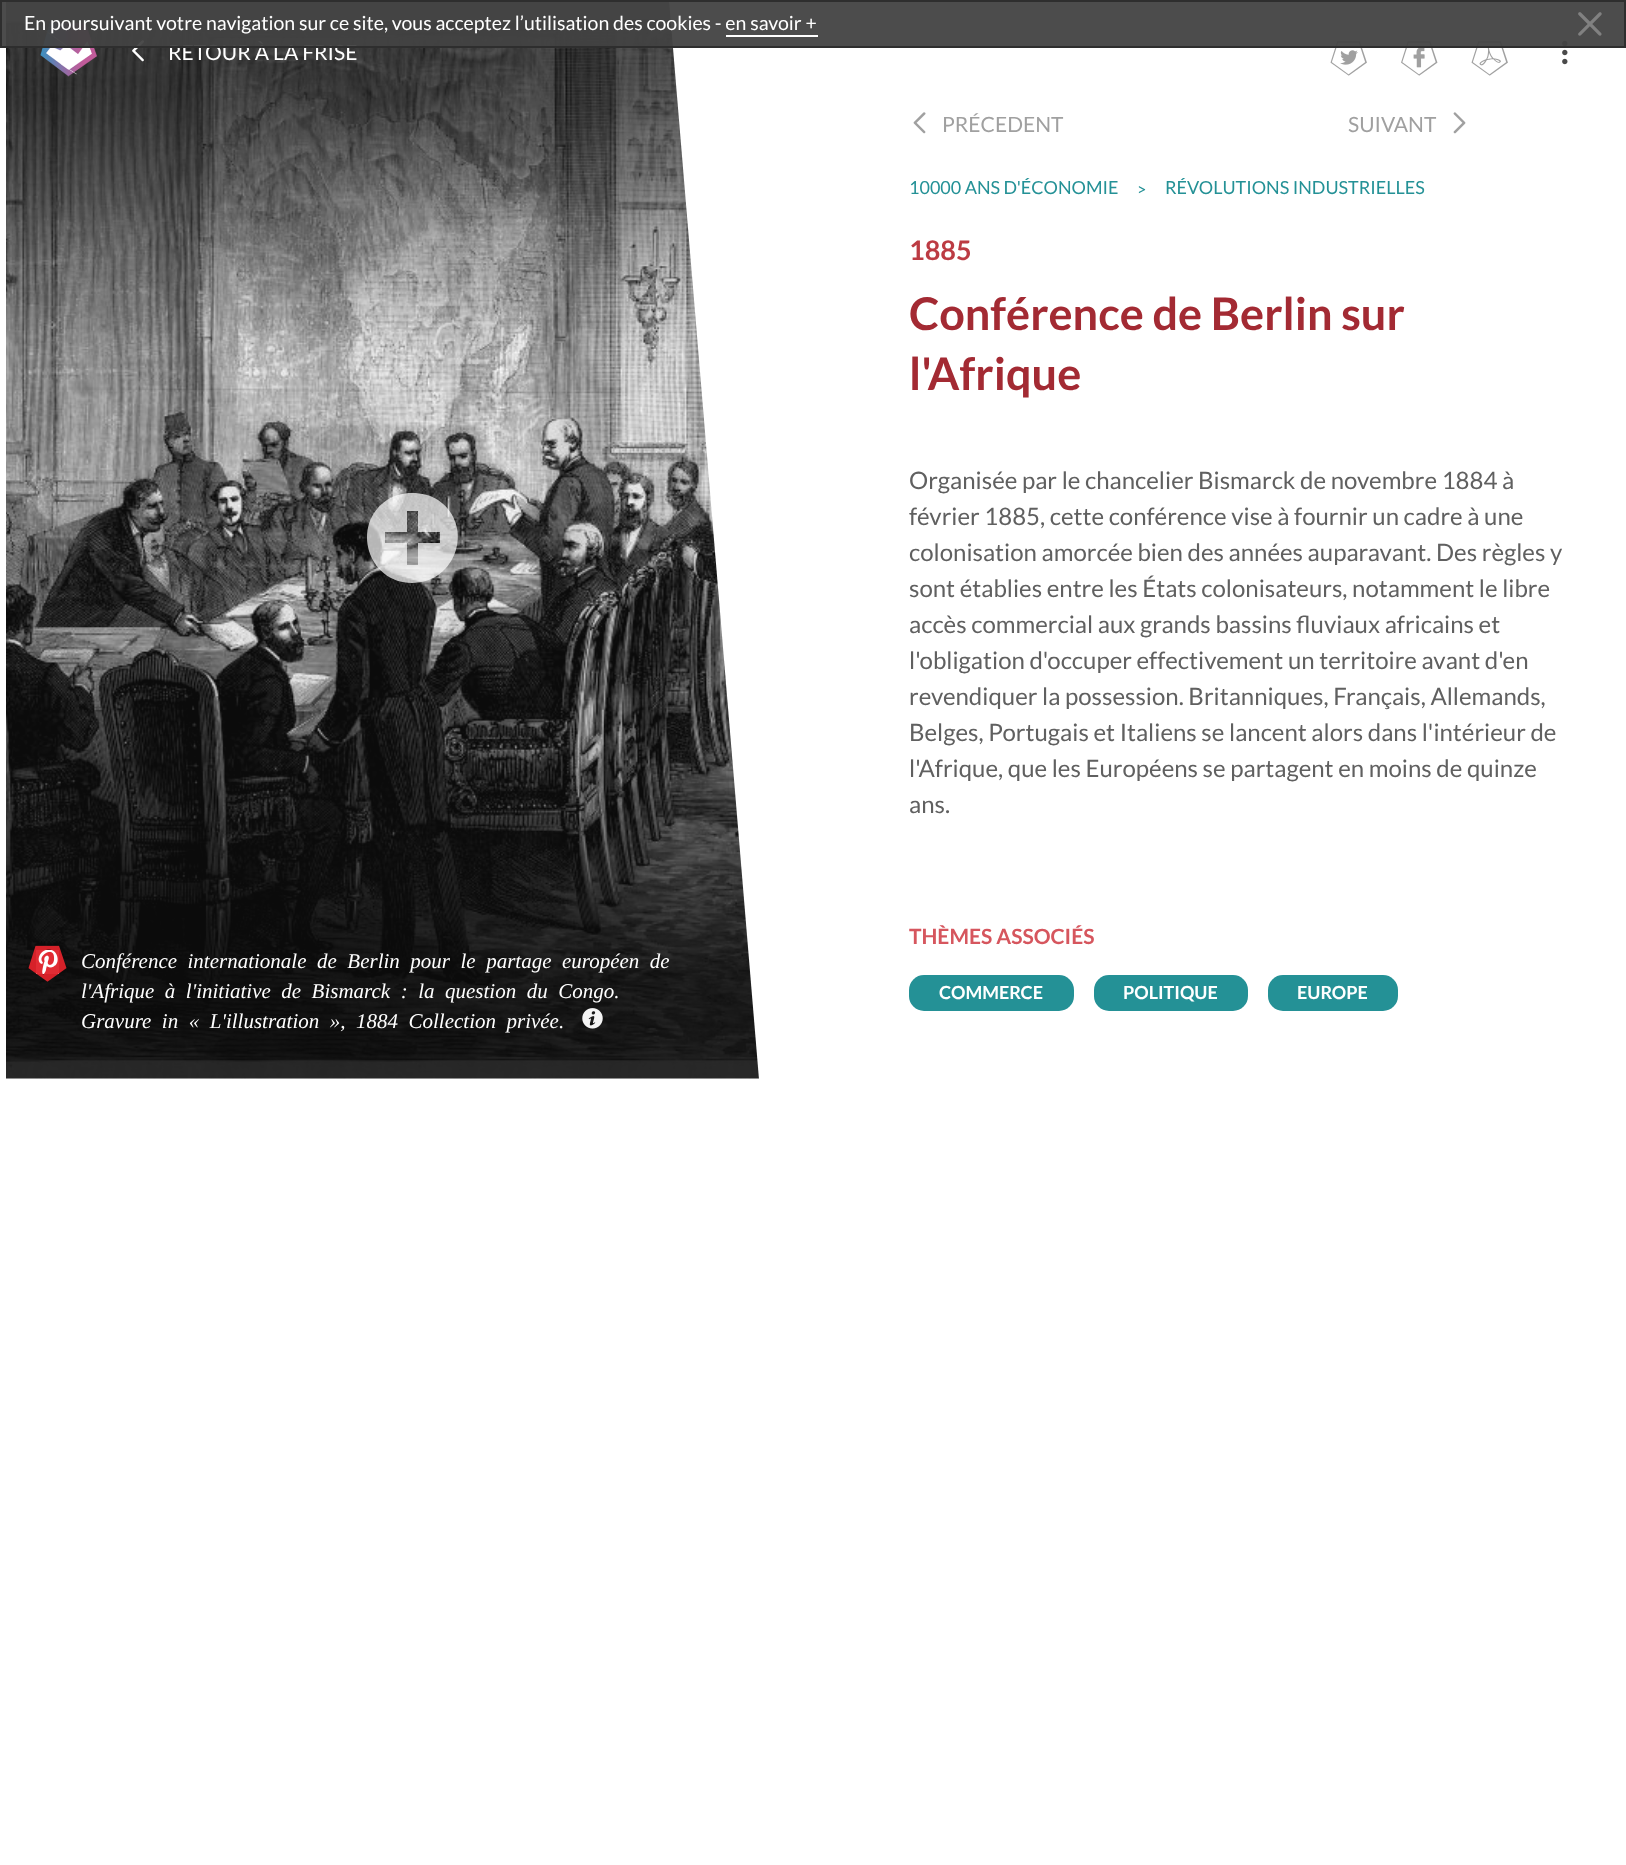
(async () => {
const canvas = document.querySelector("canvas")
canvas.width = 1626
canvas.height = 1865
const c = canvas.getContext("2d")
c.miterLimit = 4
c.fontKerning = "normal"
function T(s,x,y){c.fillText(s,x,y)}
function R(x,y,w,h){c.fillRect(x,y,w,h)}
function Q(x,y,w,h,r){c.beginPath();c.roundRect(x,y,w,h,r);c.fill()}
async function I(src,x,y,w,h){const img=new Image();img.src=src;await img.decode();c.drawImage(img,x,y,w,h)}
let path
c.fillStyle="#fff"
R(0,0,1626,1865)
await I("4.png",6,2,753,1077)
await I("2.png",38,22,59,55)
await I("3.png",132,40,12,22)
c.font="21px Lato"
T("RETOUR À LA FRISE",168,60)
path = new Path2D("M819 1799l-150-1799h150z")
c.fill(path)
await I("7.png",1330,41,37,35)
await I("8.png",1401,41,37,35)
await I("9.png",1471,41,37,35)
await I("10.png",1562,40,6,25)
c.fillStyle="#424242f2"
c.beginPath()
c.rect(1,1,1624,46)
c.fill()
c.strokeStyle="#2e2e2e"
c.lineWidth=2
c.stroke()
c.font="19.5px Lato"
c.fillStyle="#fff"
T("En poursuivant votre navigation sur ce site, vous acceptez l’utilisation des cookies - en savoir +",24,30)
R(726,35,92,2)
await I("1.png",1578,12,24,24)
c.fillStyle="#ffffffb3"
path = new Path2D("M412 493c-9 0-17 2-25 7c-37 25-19 83 25 83c45 0 63-58 26-83c-8-5-16-7-26-7zm6 50v22h-11v-22h-22v-11h22v-21h11v21h22v11z")
c.fill(path)
c.fillStyle="#fff"
R(36,950,23,24)
await I("5.png",28,945,39,37)
c.wordSpacing="5.25px"
c.font="italic 21px Liberation Serif"
T("Conférence internationale de Berlin pour le partage européen de",81,968)
T("l'Afrique à l'initiative de Bismarck : la question du Congo.",81,998)
T("Gravure in « L'illustration », 1884 Collection privée.",81,1028)
await I("6.png",582,1008,21,21)
await I("11.png",913,112,13,22)
c.wordSpacing="0px"
c.font="21px Lato"
c.fillStyle="#a0a0a0"
T("PRÉCEDENT",942,132)
T("SUIVANT",1348,132)
await I("12.png",1453,112,13,22)
c.font="18px Lato"
c.fillStyle="#249196"
T("10000 ANS D'ÉCONOMIE",909,194)
c.font="16px Lato"
T(">",1137,195)
c.font="18px Lato"
T("RÉVOLUTIONS INDUSTRIELLES",1165,194)
c.font="bold 27px Lato"
c.fillStyle="#bc3b43"
T("1885",909,260)
c.font="bold 45px Lato"
c.fillStyle="#a32a33"
T("Conférence de Berlin sur",909,330)
T("l'Afrique",909,390)
c.font="24px Lato"
c.fillStyle="#606060"
T("Organisée par le chancelier Bismarck de novembre 1884 à",909,489)
T("février 1885, cette conférence vise à fournir un cadre à une",909,525)
T("colonisation amorcée bien des années auparavant. Des règles y",909,561)
T("sont établies entre les États colonisateurs, notamment le libre",909,597)
T("accès commercial aux grands bassins fluviaux africains et",909,633)
T("l'obligation d'occuper effectivement un territoire avant d'en",909,669)
T("revendiquer la possession. Britanniques, Français, Allemands,",909,705)
T("Belges, Portugais et Italiens se lancent alors dans l'intérieur de",909,741)
T("l'Afrique, que les Européens se partagent en moins de quinze",909,777)
T("ans.",909,813)
c.font="bold 21px Lato"
c.fillStyle="#d6565e"
T("THÈMES ASSOCIÉS",909,944)
c.fillStyle="#249196"
Q(909,975,165,36,15)
c.font="bold 18px Lato"
c.fillStyle="#fff"
T("COMMERCE",939,999)
c.fillStyle="#249196"
Q(1094,975,154,36,15)
c.fillStyle="#fff"
T("POLITIQUE",1123,999)
c.fillStyle="#249196"
Q(1268,975,130,36,15)
c.fillStyle="#fff"
T("EUROPE",1297,999)
})()
